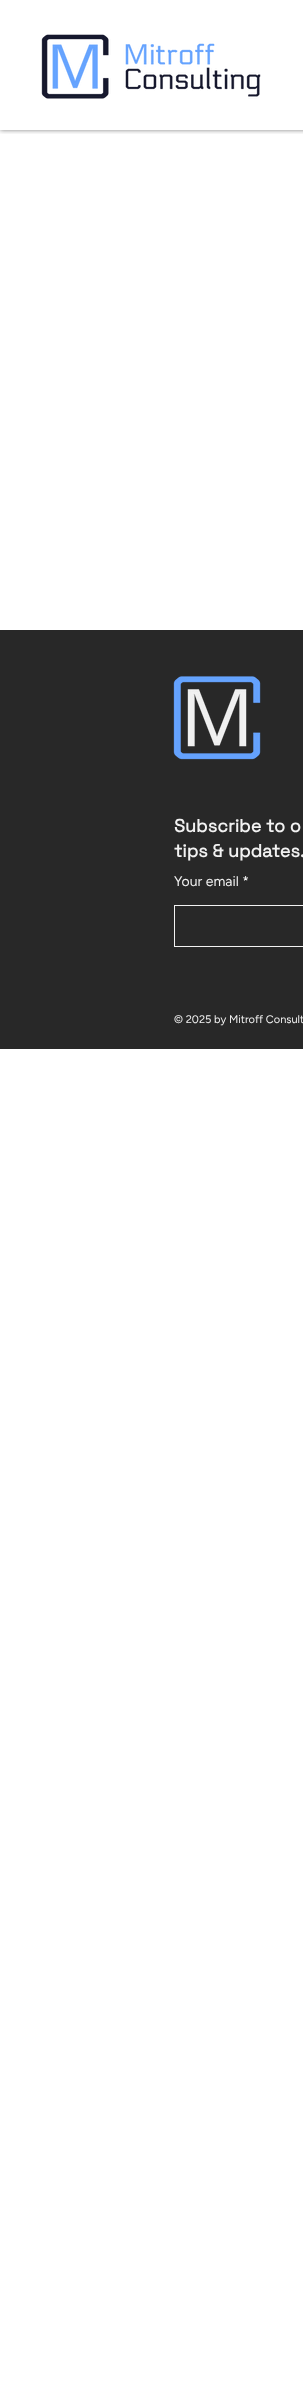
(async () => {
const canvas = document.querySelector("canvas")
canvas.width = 303
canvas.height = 2387
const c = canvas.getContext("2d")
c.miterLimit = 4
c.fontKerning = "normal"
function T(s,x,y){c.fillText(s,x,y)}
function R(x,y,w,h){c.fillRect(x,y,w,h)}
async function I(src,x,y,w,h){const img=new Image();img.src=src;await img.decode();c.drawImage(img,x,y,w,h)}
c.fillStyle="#fff"
R(0,0,303,2387)
c.save()
c.beginPath()
c.rect(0,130,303,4)
c.clip()
c.fillStyle="#00000080"
c.filter="blur(2.5px)"
c.beginPath()
c.rect(0,0,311,130)
c.fill()
c.filter="none"
c.restore()
await I("1.png",41,34,220,65)
c.fillStyle="#282828"
R(0,630,303,419)
await I("2.png",173,676,88,84)
c.font="bold 18px Space Grotesk"
c.fillStyle="#f2f2f2"
T("Subscribe to o",174,832)
T("tips & updates.",174,857)
c.font="14px Figtree"
T("Your email *",174,886)
c.strokeStyle="#f2f2f2"
c.strokeRect(174.5,905.5,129,41)
c.font="11px Figtree"
T("© 2025 by Mitroff Consult",174,1023)
})()
